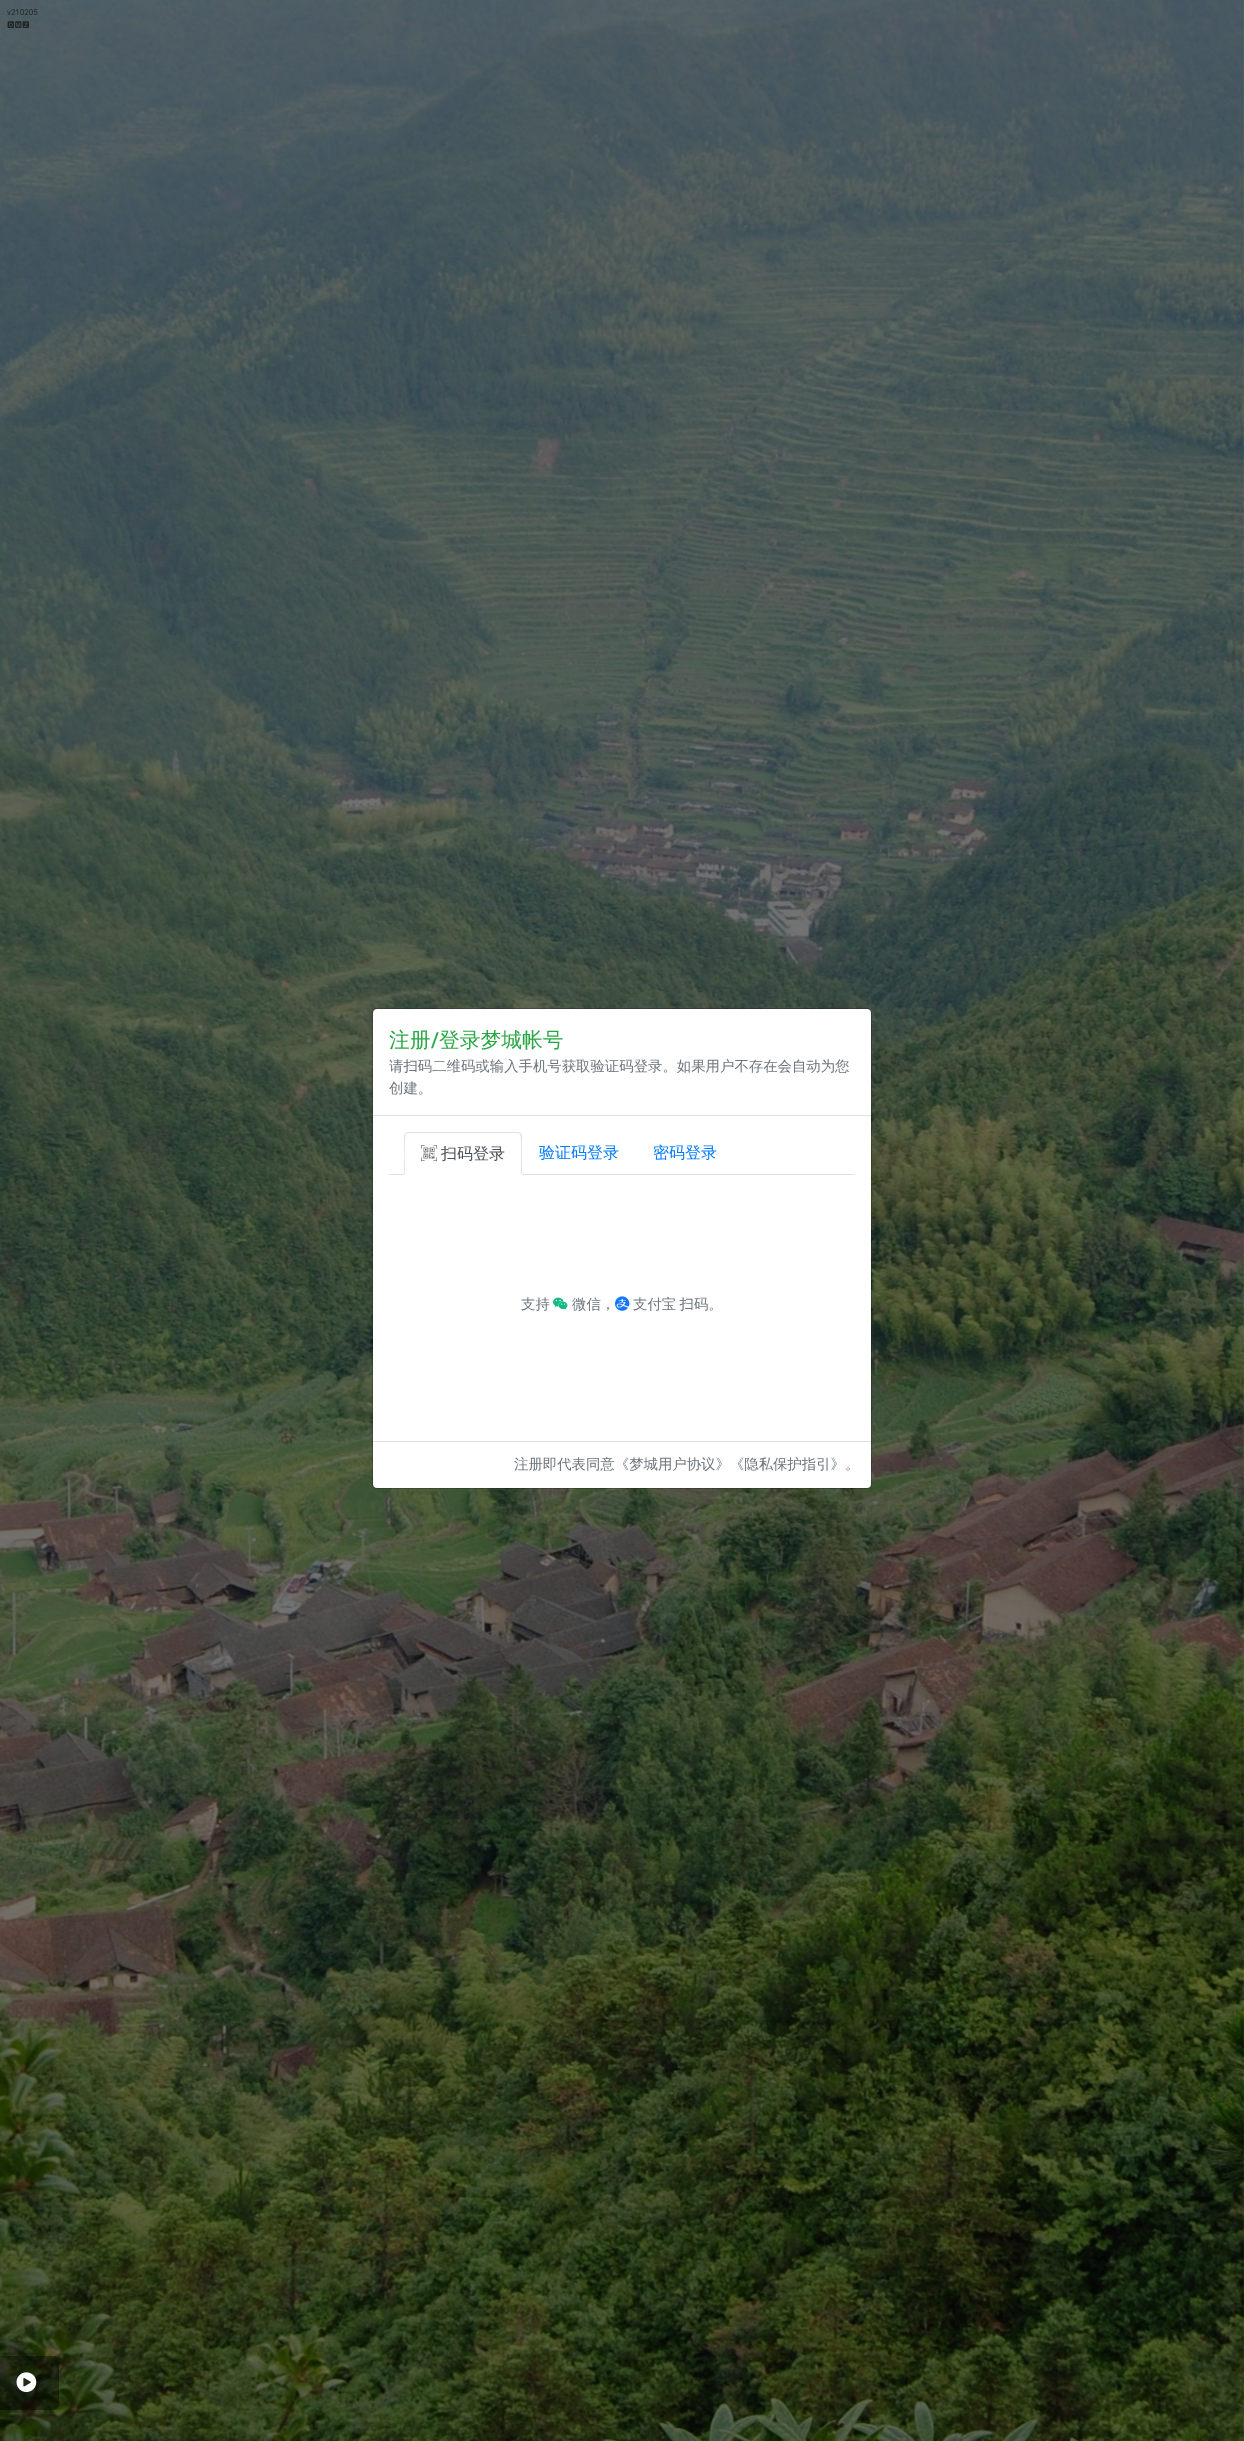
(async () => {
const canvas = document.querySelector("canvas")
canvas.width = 1244
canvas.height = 2441
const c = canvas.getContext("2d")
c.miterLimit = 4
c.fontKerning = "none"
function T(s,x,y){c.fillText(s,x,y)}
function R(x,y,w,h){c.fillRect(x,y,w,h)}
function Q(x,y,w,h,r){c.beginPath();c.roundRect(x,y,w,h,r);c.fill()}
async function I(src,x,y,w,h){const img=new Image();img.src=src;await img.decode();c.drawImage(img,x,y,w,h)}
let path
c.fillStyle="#fff"
R(0,0,1244,2441)
await I("1.png",0,0,1244,2441)
c.font="8px Roboto"
c.fillStyle="#212529"
T("v210205",7,15)
c.font="8px FreeSans"
T("🅳🅼🆉",7,27)
c.fillStyle="#fff"
Q(373,1009,498,479,4)
c.beginPath()
c.roundRect(372.5,1008.5,499,480,4.5)
c.strokeStyle="#00000033"
c.stroke()
c.fillStyle="#dee2e6"
R(373,1115,498,1)
c.font="500 20.75px WenQuanYi Zen Hei"
c.fillStyle="#28a745"
T("注册",389,1047)
c.font="500 20.75px Roboto"
T("/",431,1047)
c.font="500 20.75px WenQuanYi Zen Hei"
T("登录梦城帐号",439,1047)
c.font="500 14.4px WenQuanYi Zen Hei"
c.fillStyle="#6c757d"
T("请扫码二维码或输入手机号获取验证码登录。如果用户不存在会自动为您",389,1071)
T("创建。",389,1093)
c.fillStyle="#dee2e6"
R(389,1174,466,1)
c.fillStyle="#fff"
c.beginPath()
c.roundRect(404,1132,118,43,[4,4,0,0])
c.fill()
c.fillStyle="#dee2e6"
path = new Path2D("M408 1132l-3 1l1 1l2-1h110l2 1l1-1l-3-1z")
c.fill(path)
path = new Path2D("M522 1175v-39c0-1 0-2-1-3l-1 1c2 2 1 35 1 40z")
c.fill(path)
c.fillStyle="#fff"
path = new Path2D("M522 1175l-1-1h-116l-1 1z")
c.fill(path)
c.fillStyle="#dee2e6"
path = new Path2D("M404 1175l1-1c0-5-1-38 1-40l-1-1l-1 3z")
c.fill(path)
await I("2.png",421,1145,16,16)
c.font="500 16px WenQuanYi Zen Hei"
c.fillStyle="#495057"
T("扫码登录",441,1159)
c.fillStyle="#007bff"
T("验证码登录",539,1158)
T("密码登录",653,1158)
c.font="500 14.4px WenQuanYi Zen Hei"
c.fillStyle="#6c757d"
T("支持",521,1309)
await I("3.png",553,1297,15,13)
T("微信，",572,1309)
await I("4.png",615,1296,15,15)
c.wordSpacing="-1px"
T("支付宝 扫码。",633,1309)
c.fillStyle="#dee2e6"
R(373,1441,498,1)
c.wordSpacing="0px"
c.fillStyle="#6c757d"
T("注册即代表同意《梦城用户协议》《隐私保护指引》。",514,1469)
c.fillStyle="#00000066"
c.beginPath()
c.roundRect(0,2356,59,54,[0,5,5,0])
c.fill()
await I("5.png",16,2372,21,21)
})()
